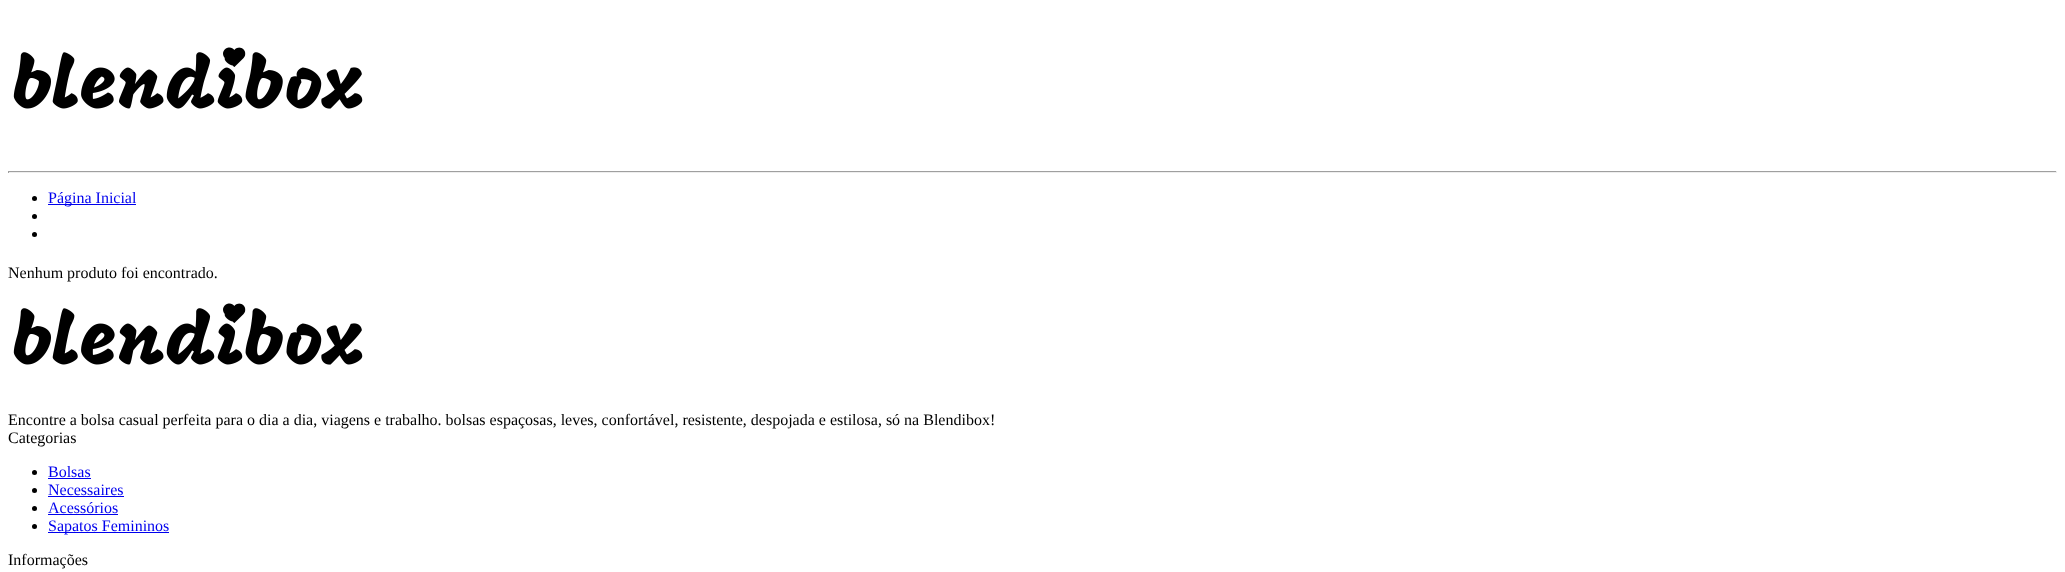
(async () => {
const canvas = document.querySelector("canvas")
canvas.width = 2065
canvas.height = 572
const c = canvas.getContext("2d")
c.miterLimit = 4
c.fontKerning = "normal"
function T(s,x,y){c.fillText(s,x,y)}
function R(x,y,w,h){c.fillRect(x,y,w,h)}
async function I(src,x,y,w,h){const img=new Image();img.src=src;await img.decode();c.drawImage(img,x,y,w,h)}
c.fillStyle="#fff"
R(0,0,2065,572)
await I("1.png",13,47,350,62)
c.fillStyle="#9f9f9f"
R(8,171,2049,1)
c.fillStyle="#eee"
R(2056,171,1,2)
R(8,172,2049,1)
c.fillStyle="#9f9f9f"
R(8,171,1,2)
c.fillStyle="#000"
c.beginPath()
c.arc(34.5,198.5,2.5,0,7)
c.fill()
c.fillStyle="#00e"
R(48,204,88,1)
c.font="16px Liberation Serif"
T("Página Inicial",48,203)
c.fillStyle="#000"
c.beginPath()
c.arc(34.5,216.5,2.5,0,7)
c.fill()
c.beginPath()
c.arc(34.5,234.5,2.5,0,7)
c.fill()
T("Nenhum produto foi encontrado.",8,278)
await I("1.png",13,303,350,62)
T("Encontre a bolsa casual perfeita para o dia a dia, viagens e trabalho. bolsas espaçosas, leves, confortável, resistente, despojada e estilosa, só na Blendibox!",8,425)
T("Categorias",8,443)
c.beginPath()
c.arc(34.5,472.5,2.5,0,7)
c.fill()
c.fillStyle="#00e"
T("Bolsas",48,477)
R(48,478,43,1)
c.fillStyle="#000"
c.beginPath()
c.arc(34.5,490.5,2.5,0,7)
c.fill()
c.fillStyle="#00e"
T("Necessaires",48,495)
R(48,496,76,1)
c.fillStyle="#000"
c.beginPath()
c.arc(34.5,508.5,2.5,0,7)
c.fill()
c.fillStyle="#00e"
T("Acessórios",48,513)
R(48,514,70,1)
c.fillStyle="#000"
c.beginPath()
c.arc(34.5,526.5,2.5,0,7)
c.fill()
c.fillStyle="#00e"
R(48,532,121,1)
T("Sapatos Femininos",48,531)
c.fillStyle="#000"
T("Informações",8,565)
})()
